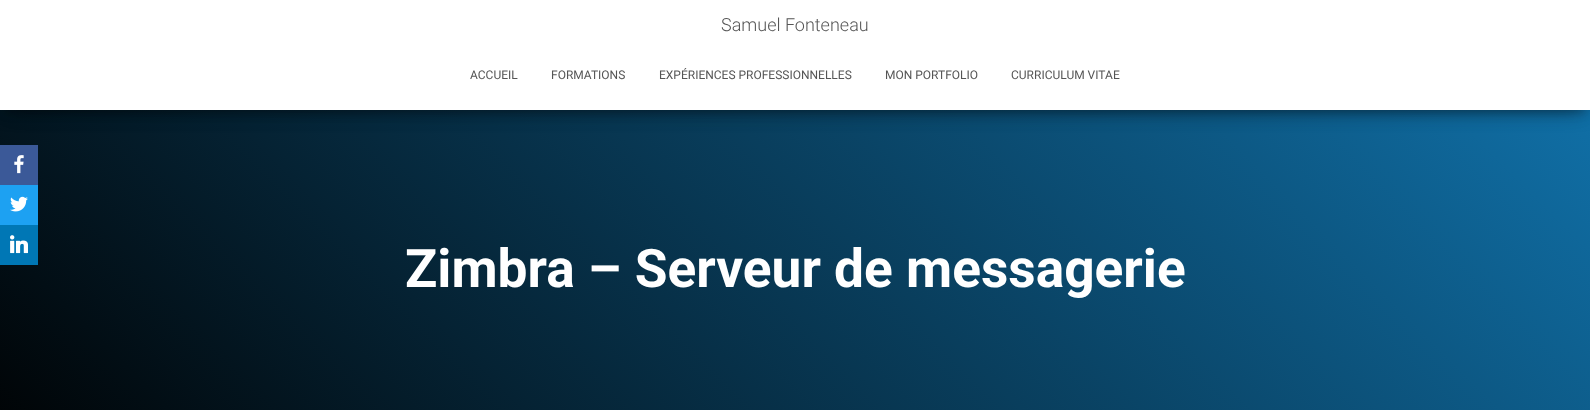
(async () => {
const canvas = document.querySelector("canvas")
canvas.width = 1590
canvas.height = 410
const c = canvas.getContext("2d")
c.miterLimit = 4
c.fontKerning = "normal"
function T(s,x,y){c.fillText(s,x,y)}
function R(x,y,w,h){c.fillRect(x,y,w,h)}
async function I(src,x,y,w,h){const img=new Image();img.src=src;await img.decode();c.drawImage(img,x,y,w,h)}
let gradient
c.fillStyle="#fff"
R(0,0,1590,410)
gradient = c.createLinearGradient(275,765,1315,-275)
gradient.addColorStop(0,"#000")
gradient.addColorStop(1,"#1175af")
c.fillStyle = gradient
R(0,110,1590,300)
c.fillStyle="#3b5998"
R(0,145,38,40)
await I("1.png",14,155,10,19)
c.fillStyle="#1da1f2"
R(0,185,38,40)
await I("2.png",10,196,18,16)
c.fillStyle="#0077b5"
R(0,225,38,40)
await I("3.png",10,235,18,19)
c.fillStyle="#00000033"
c.filter="blur(5px)"
c.beginPath()
c.rect(5,13,1580,100)
c.fill()
c.filter="none"
c.fillStyle="#0000001f"
c.filter="blur(10px)"
c.beginPath()
c.rect(0,3,1590,110)
c.fill()
c.filter="none"
c.fillStyle="#0000006b"
c.filter="blur(10px)"
c.beginPath()
c.rect(12,22,1566,86)
c.fill()
c.filter="none"
c.fillStyle="#fff"
R(0,0,1590,110)
c.font="300 18px Roboto"
c.fillStyle="#555"
T("Samuel Fonteneau",721,31)
c.font="12px Roboto"
T("ACCUEIL",470,79)
T("FORMATIONS",551,79)
T("EXPÉRIENCES PROFESSIONNELLES",659,79)
T("MON PORTFOLIO",885,79)
T("CURRICULUM VITAE",1011,79)
c.font="bold 53.25px Roboto"
c.fillStyle="#fff"
T("Zimbra – Serveur de messagerie",405,287)
})()
